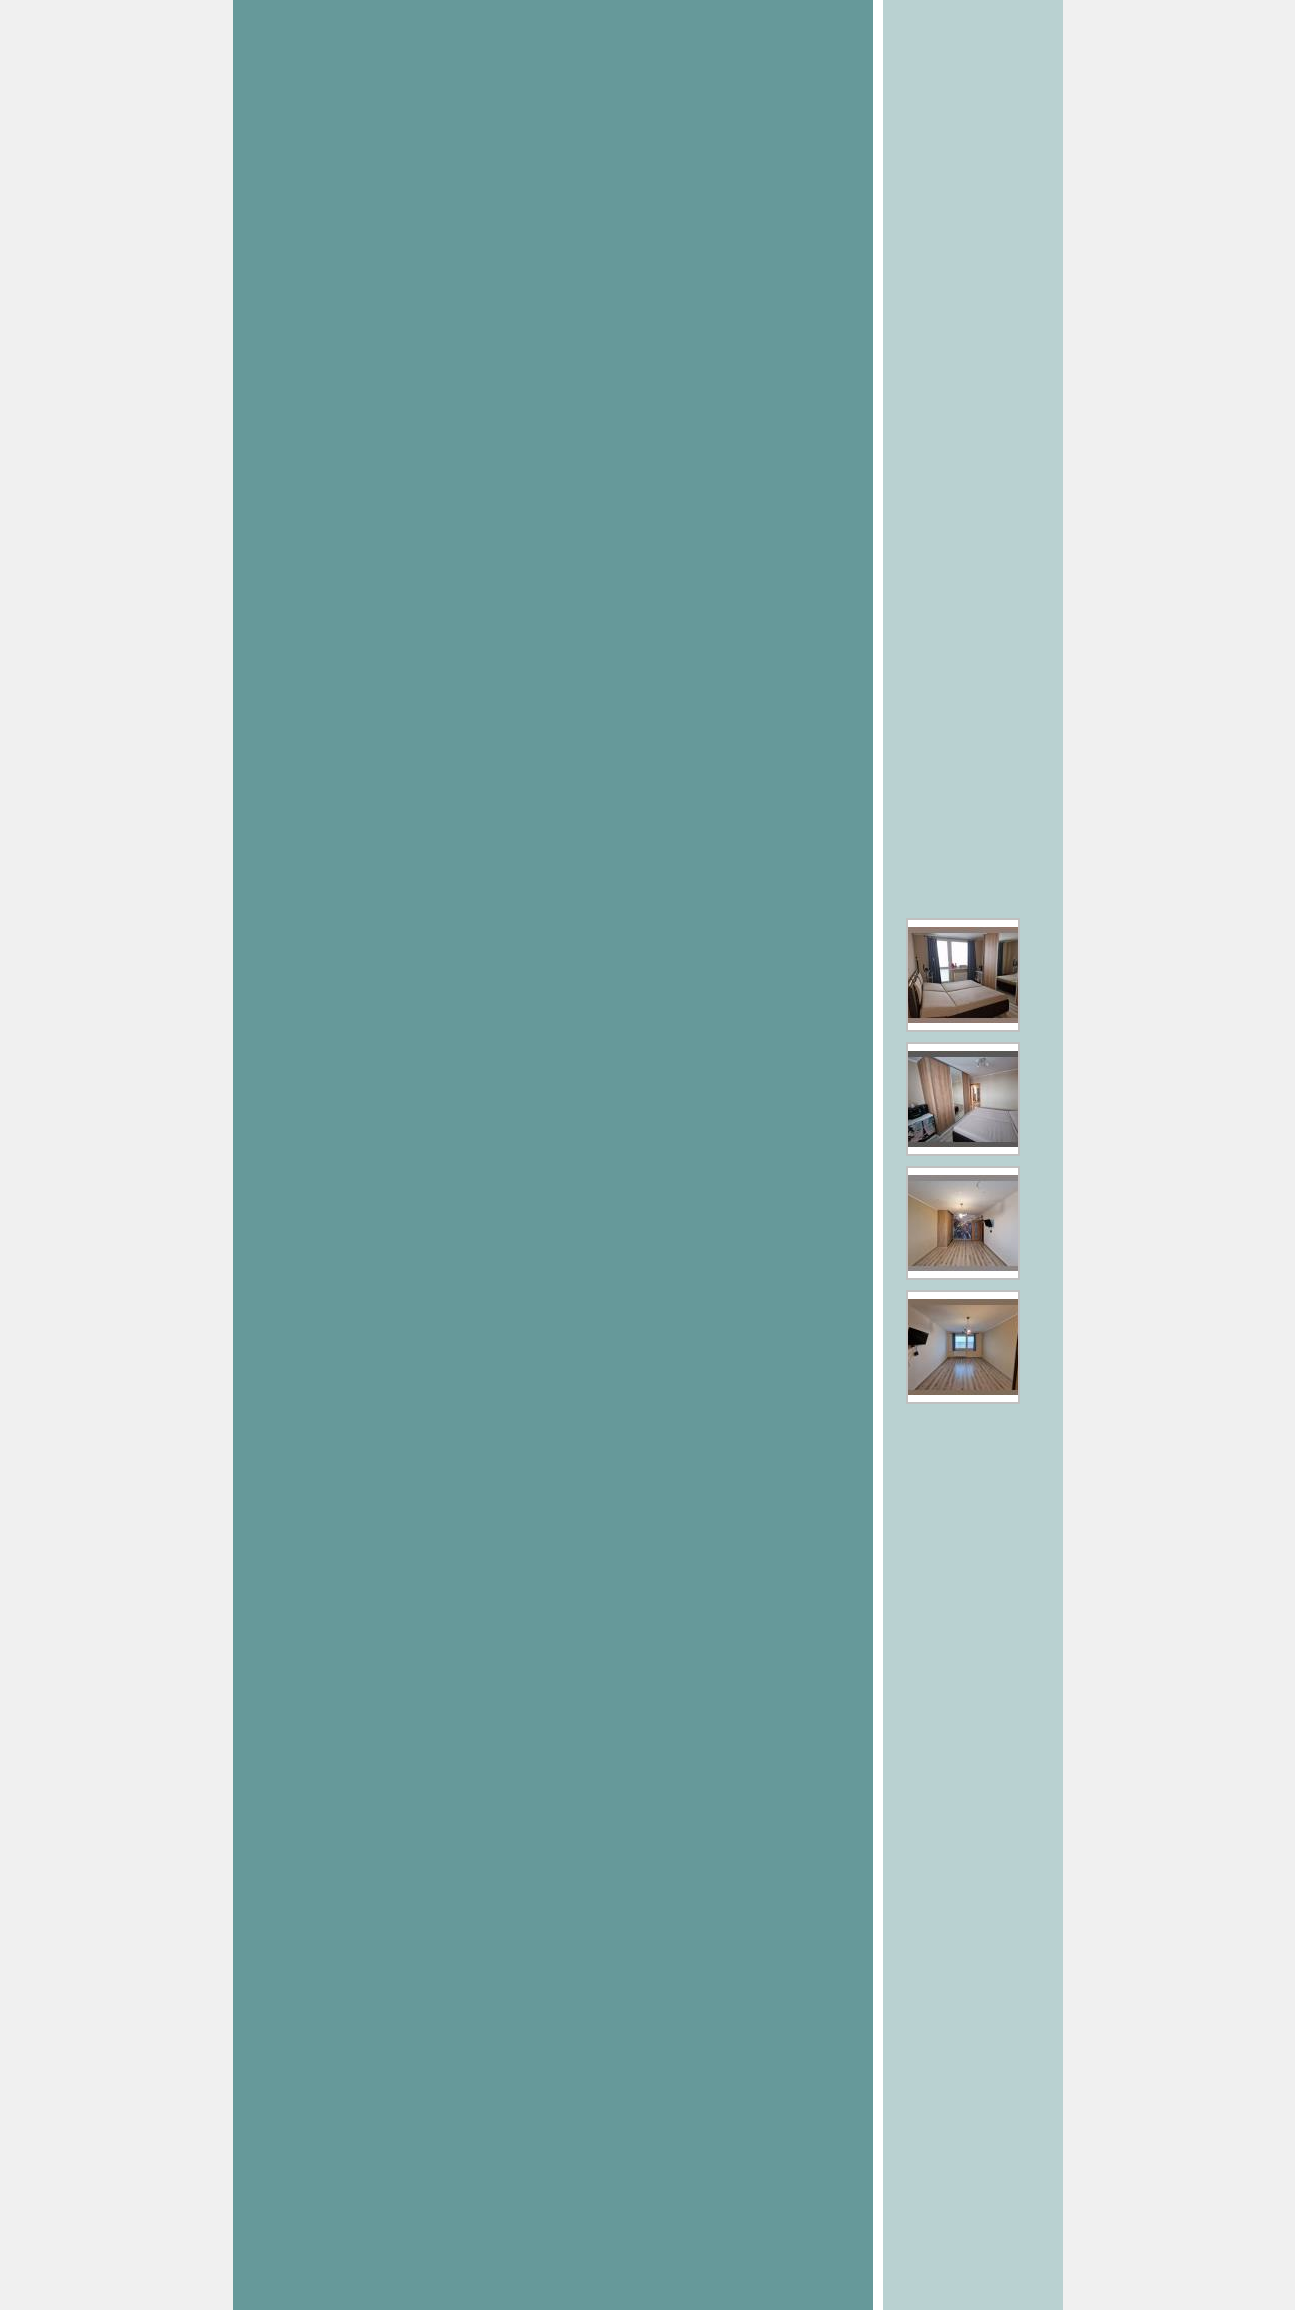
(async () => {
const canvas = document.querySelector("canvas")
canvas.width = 1295
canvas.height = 2310
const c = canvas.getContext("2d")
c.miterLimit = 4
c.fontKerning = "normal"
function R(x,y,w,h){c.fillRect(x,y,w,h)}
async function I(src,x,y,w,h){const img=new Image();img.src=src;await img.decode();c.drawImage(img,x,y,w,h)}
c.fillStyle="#f0f0f0"
R(0,0,1295,2310)
c.fillStyle="#66999a"
R(233,0,640,2310)
c.fillStyle="#fff"
R(873,0,10,2310)
c.fillStyle="#b9d1d1"
R(883,0,180,2310)
c.fillStyle="#fff"
R(908,920,110,110)
await I("1.png",908,927,110,96)
c.strokeStyle="#c0c0c0"
c.lineWidth=2
c.strokeRect(907,919,112,112)
R(908,1044,110,110)
await I("2.png",908,1051,110,96)
c.strokeRect(907,1043,112,112)
R(908,1168,110,110)
await I("3.png",908,1175,110,96)
c.strokeRect(907,1167,112,112)
R(908,1292,110,110)
await I("4.png",908,1299,110,96)
c.strokeRect(907,1291,112,112)
})()
